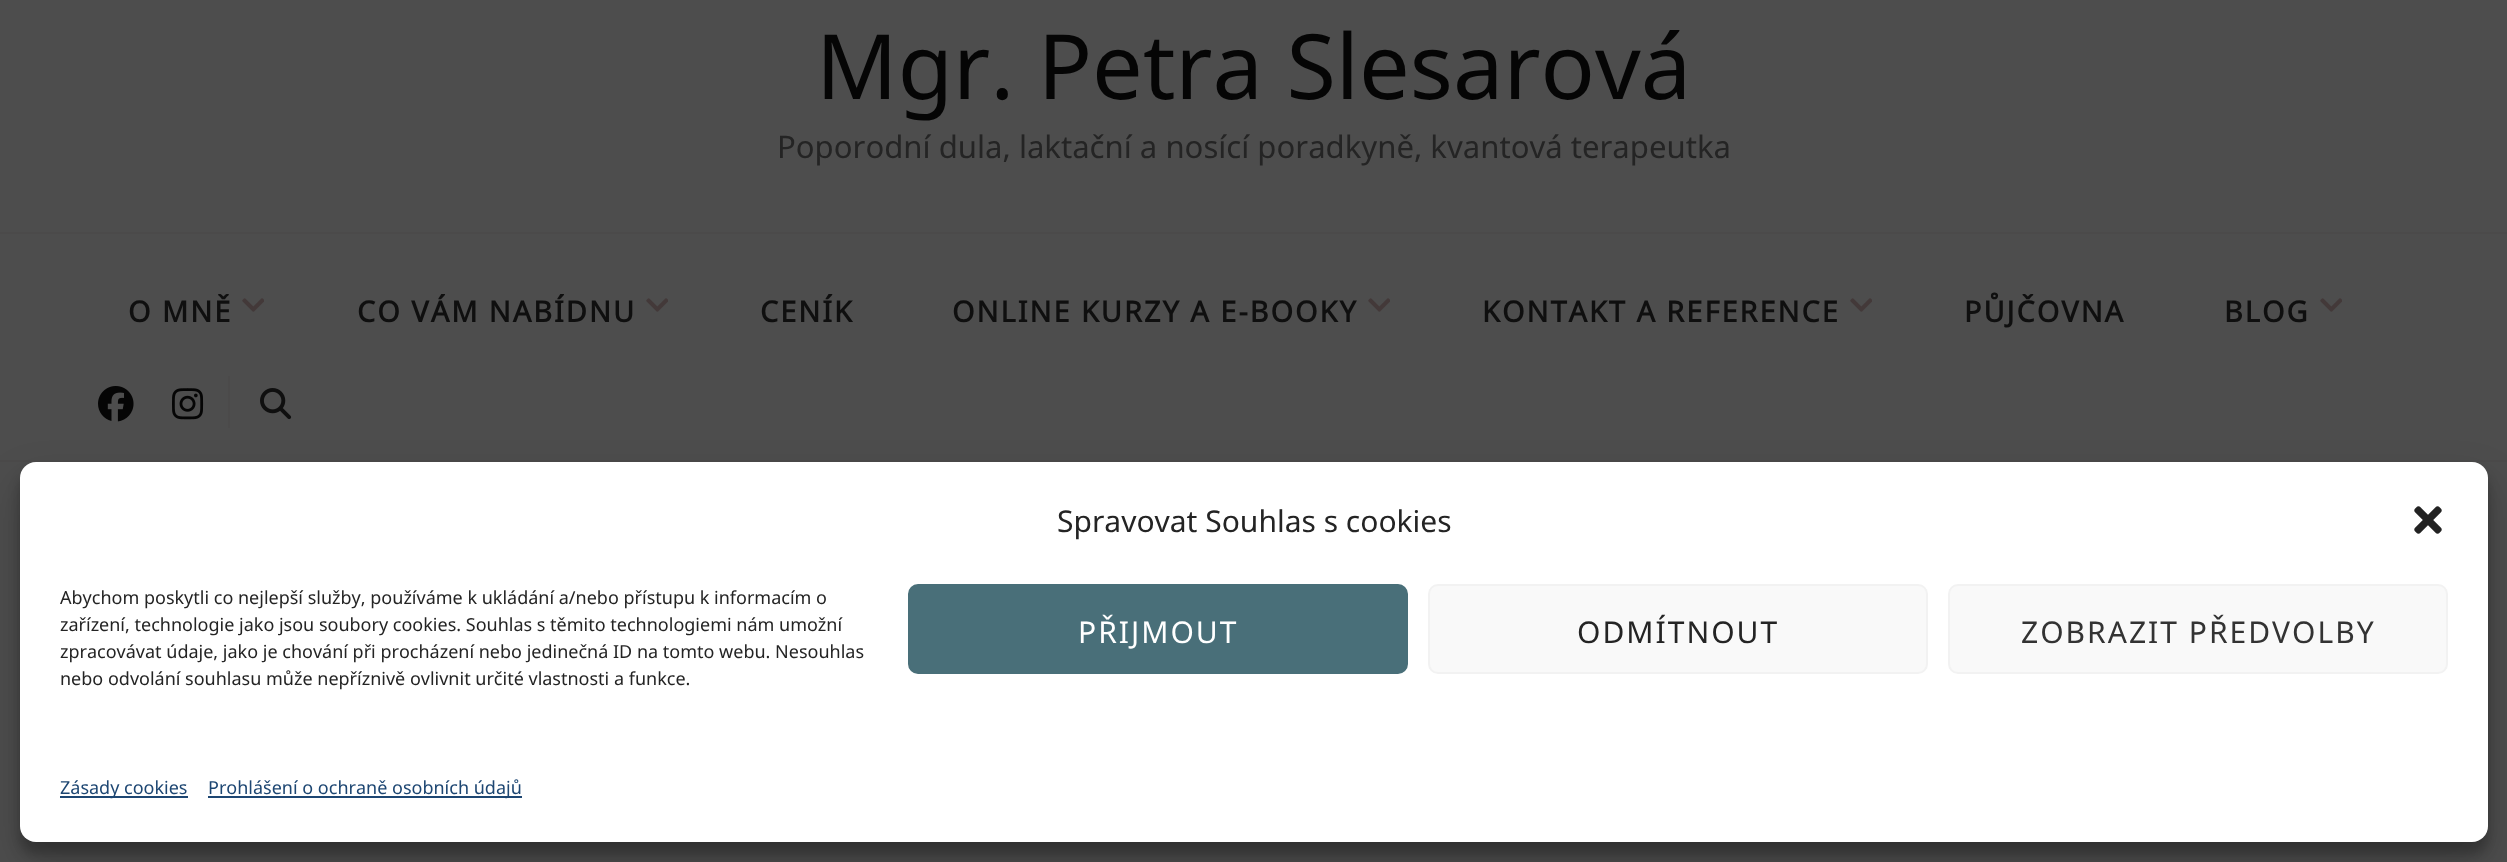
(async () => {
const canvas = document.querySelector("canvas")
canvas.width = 2507
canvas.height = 862
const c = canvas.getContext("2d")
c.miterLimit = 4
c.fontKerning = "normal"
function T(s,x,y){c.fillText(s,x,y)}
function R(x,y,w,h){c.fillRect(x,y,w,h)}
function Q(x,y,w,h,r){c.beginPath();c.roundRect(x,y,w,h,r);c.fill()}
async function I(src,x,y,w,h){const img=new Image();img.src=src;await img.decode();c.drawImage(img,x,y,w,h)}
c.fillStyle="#4d4d4d"
R(0,0,2507,862)
c.font="90px Noto Sans Cuneiform"
c.fillStyle="#050505"
T("Mgr. Petra Slesarová",816,99)
c.font="31.1px Noto Sans Cuneiform"
c.fillStyle="#242424"
T("Poporodní dula, laktační a nosící poradkyně, kvantová terapeutka",777,158)
c.fillStyle="#4b4a4a"
R(0,232,2507,2)
R(0,460,2507,2)
c.letterSpacing="2px"
c.font="bold 28.9px Noto Sans Cuneiform"
c.fillStyle="#0f0f0f"
T("O MNĚ",128,322)
await I("1.png",242,298,22,14)
T("CO VÁM NABÍDNU",357,322)
await I("1.png",646,298,22,14)
T("CENÍK",760,322)
T("ONLINE KURZY A E-BOOKY",952,322)
await I("1.png",1368,298,22,14)
T("KONTAKT A REFERENCE",1482,322)
await I("1.png",1850,298,22,14)
T("PŮJČOVNA",1964,322)
T("BLOG",2224,322)
await I("1.png",2320,298,22,14)
await I("2.png",98,386,36,36)
await I("3.png",172,388,32,32)
c.fillStyle="#4b4a4a"
R(228,376,2,52)
await I("4.png",260,388,32,32)
c.fillStyle="#0000003b"
c.filter="blur(6px)"
c.beginPath()
c.roundRect(20,474,2468,380,16)
c.fill()
c.filter="none"
c.fillStyle="#00000030"
c.filter="blur(20px)"
c.beginPath()
c.roundRect(20,482,2468,380,16)
c.fill()
c.filter="none"
c.fillStyle="#fff"
Q(20,462,2468,380,16)
c.letterSpacing="0px"
c.font="30px Noto Sans Cuneiform"
c.fillStyle="#242424"
T("Spravovat Souhlas s cookies",1057,532)
await I("5.png",2414,506,28,28)
c.font="18px Noto Sans Cuneiform"
T("Abychom poskytli co nejlepší služby, používáme k ukládání a/nebo přístupu k informacím o",60,604)
T("zařízení, technologie jako jsou soubory cookies. Souhlas s těmito technologiemi nám umožní",60,631)
T("zpracovávat údaje, jako je chování při procházení nebo jedinečná ID na tomto webu. Nesouhlas",60,658)
T("nebo odvolání souhlasu může nepříznivě ovlivnit určité vlastnosti a funkce.",60,685)
c.fillStyle="#496f79"
c.beginPath()
c.roundRect(909,585,498,88,9)
c.fill()
c.strokeStyle="#496f79"
c.lineWidth=2
c.stroke()
c.letterSpacing="2px"
c.font="30px Noto Sans Cuneiform"
c.fillStyle="#fff"
T("PŘIJMOUT",1078,643)
c.fillStyle="#f9f9f9"
c.beginPath()
c.roundRect(1429,585,498,88,9)
c.fill()
c.strokeStyle="#f2f2f2"
c.stroke()
c.fillStyle="#242424"
T("ODMÍTNOUT",1577,643)
c.fillStyle="#f9f9f9"
c.beginPath()
c.roundRect(1949,585,498,88,9)
c.fill()
c.stroke()
c.fillStyle="#333"
T("ZOBRAZIT PŘEDVOLBY",2021,643)
c.fillStyle="#1d4672"
R(60,796,128,2)
c.letterSpacing="0px"
c.font="18px Noto Sans Cuneiform"
T("Zásady cookies",60,794)
R(208,796,314,2)
T("Prohlášení o ochraně osobních údajů",208,794)
})()
